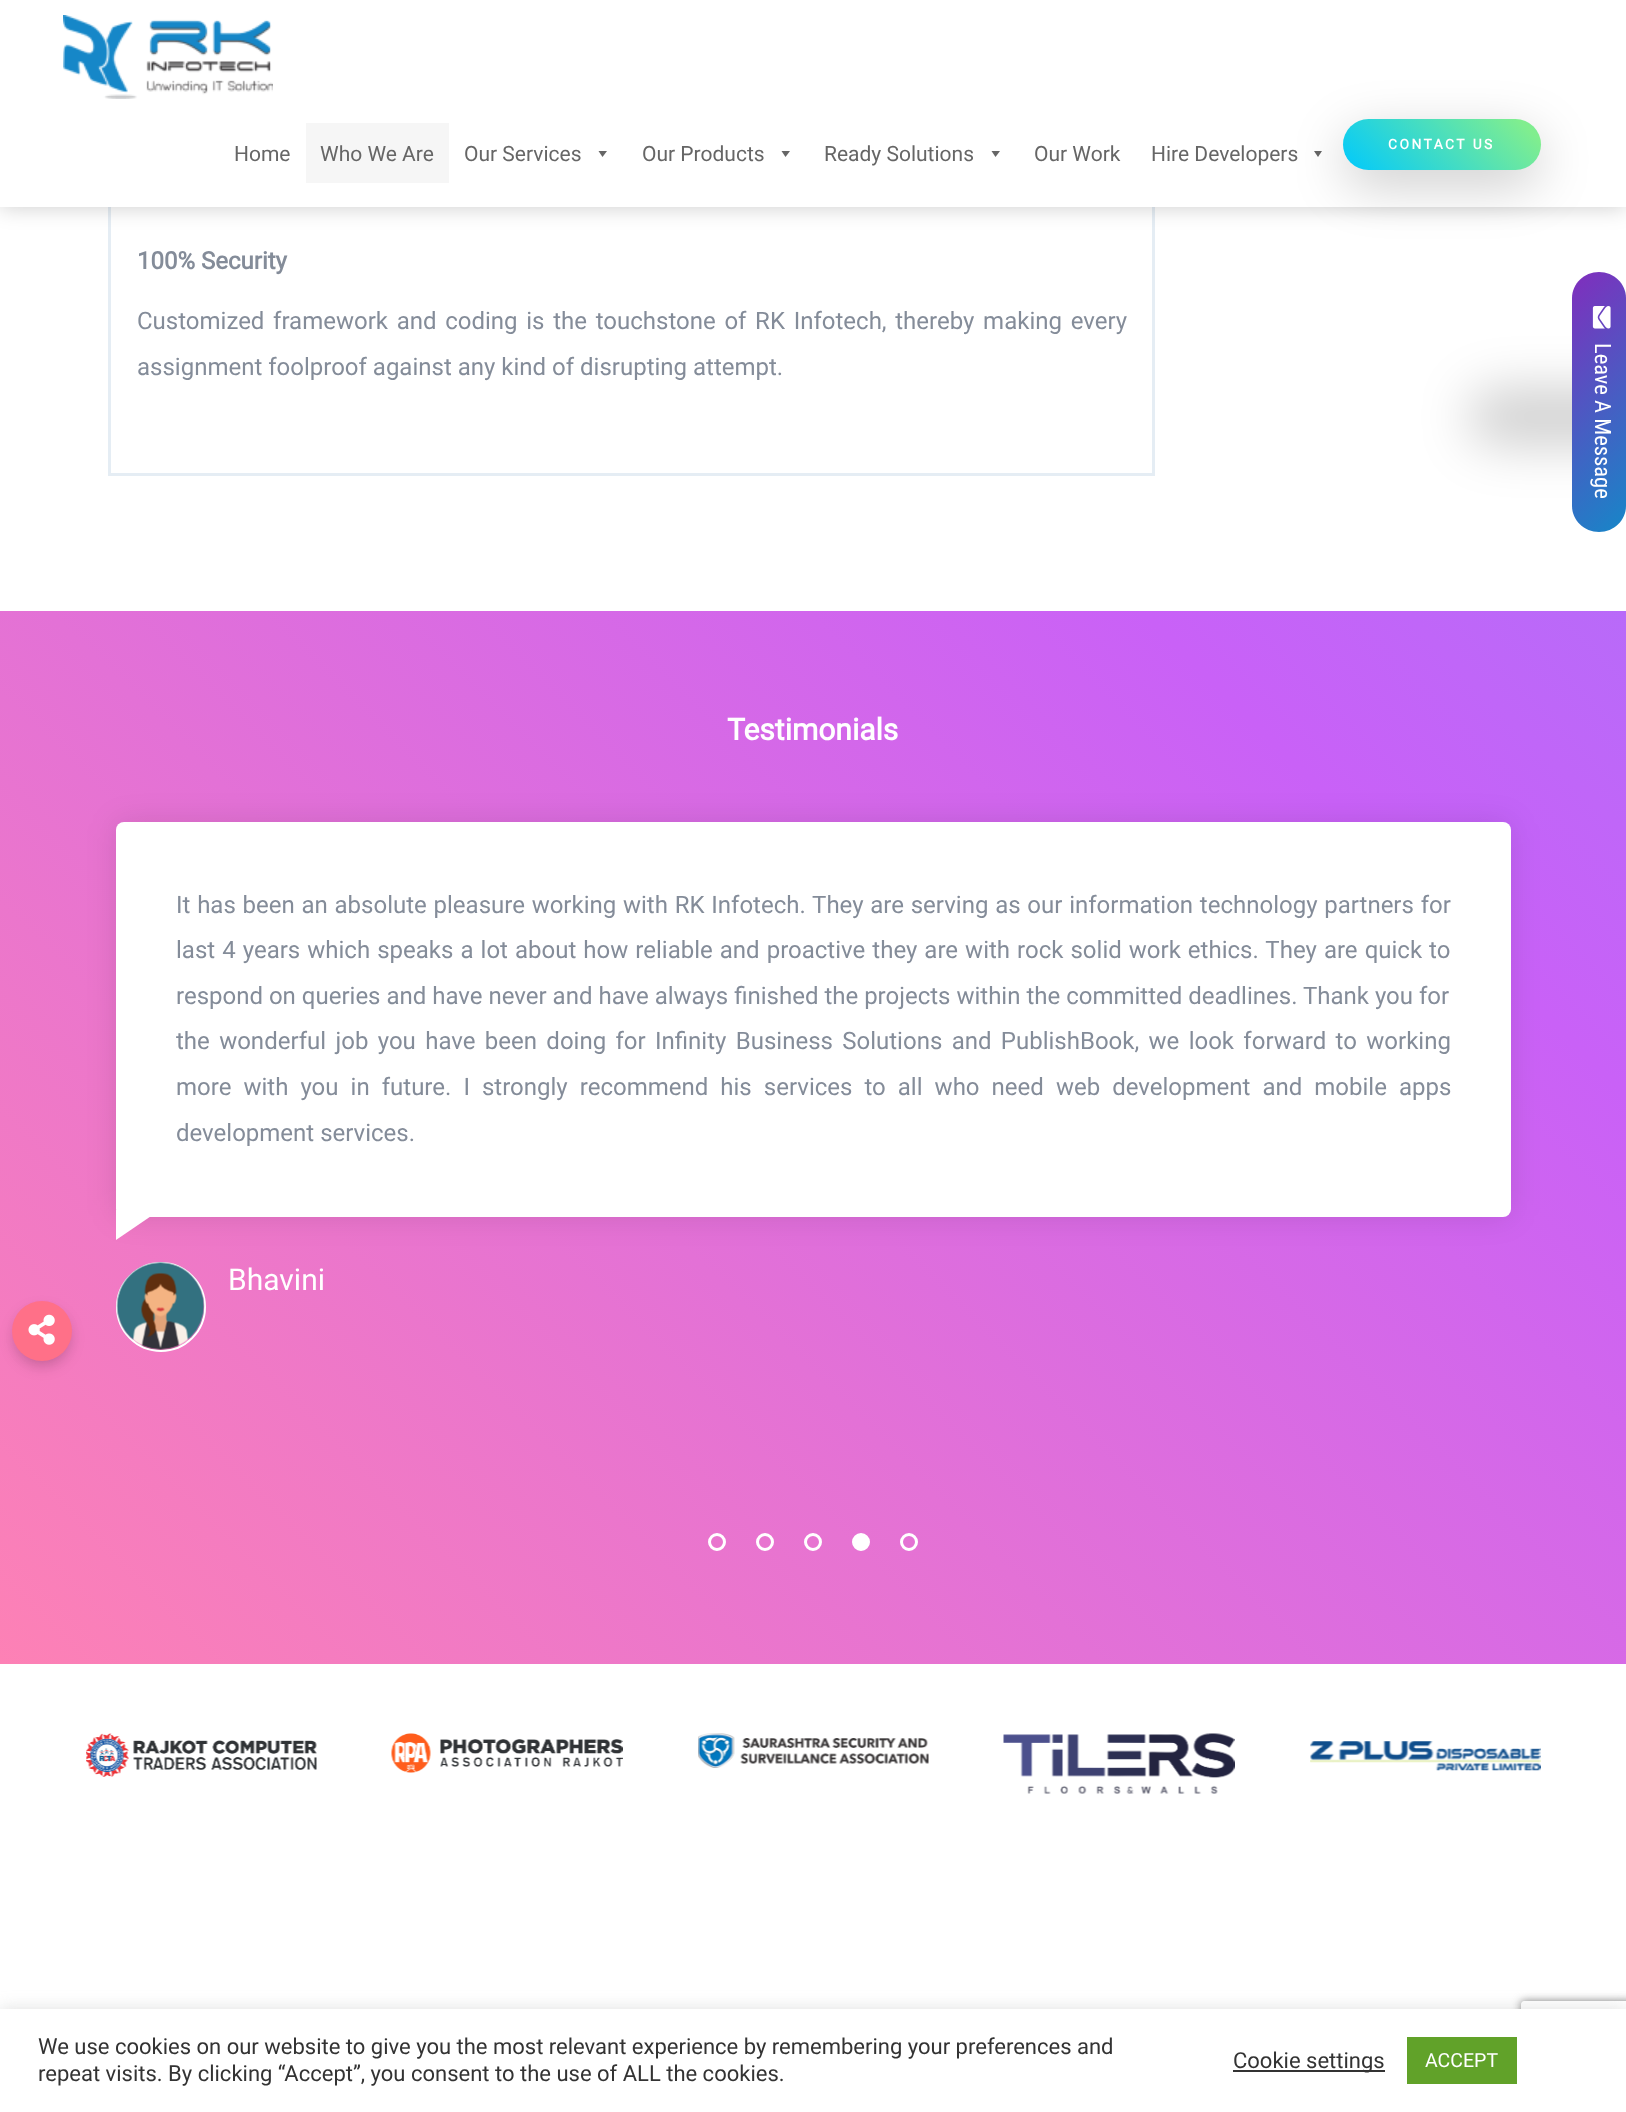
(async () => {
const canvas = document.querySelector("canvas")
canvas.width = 1626
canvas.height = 2112
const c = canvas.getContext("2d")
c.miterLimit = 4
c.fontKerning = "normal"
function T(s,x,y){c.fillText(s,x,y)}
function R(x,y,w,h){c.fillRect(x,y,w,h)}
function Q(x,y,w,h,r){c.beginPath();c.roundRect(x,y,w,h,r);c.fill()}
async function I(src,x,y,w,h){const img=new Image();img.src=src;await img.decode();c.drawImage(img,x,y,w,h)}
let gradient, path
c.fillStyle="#fff"
R(0,0,1626,2112)
c.strokeStyle="#e5edf4"
c.lineWidth=3
c.strokeRect(109.5,-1.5,1044,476)
c.fillStyle="#00000033"
c.filter="blur(11px)"
c.beginPath()
c.rect(0,0,1626,207)
c.fill()
c.filter="none"
c.fillStyle="#fff"
R(0,0,1626,207)
await I("1.png",63,15,210,84)
c.font="21px Roboto"
c.fillStyle="#666"
T("Home",234,161)
c.fillStyle="#f6f6f6"
R(306,123,143,60)
c.fillStyle="#666"
T("Who We Are",320,161)
T("Our Services",464,161)
path = new Path2D("M607 151l-4.5 6l-4-6z")
c.fill(path)
T("Our Products",642,161)
path = new Path2D("M790 151l-4.5 6l-4-6z")
c.fill(path)
T("Ready Solutions",824,161)
path = new Path2D("M1000 151l-4.5 6l-4-6z")
c.fill(path)
T("Our Work",1034,161)
T("Hire Developers",1151,161)
path = new Path2D("M1322 151l-4 6l-4-6z")
c.fill(path)
c.fillStyle="#00000033"
c.filter="blur(26px)"
c.beginPath()
c.roundRect(1343,134,198,51,25.5)
c.fill()
c.filter="none"
gradient = c.createLinearGradient(1429,256,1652,32)
gradient.addColorStop(0,"#00c9fd")
gradient.addColorStop(.51,"#81ee8e")
gradient.addColorStop(1,"#00c9fd")
c.fillStyle = gradient
Q(1343,119,198,51,25.5)
c.letterSpacing="2.5px"
c.font="bold 13.75px Roboto"
c.fillStyle="#fff"
T("CONTACT US",1388,149)
gradient = c.createLinearGradient(550,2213,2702,61)
gradient.addColorStop(0,"#fd81b5")
gradient.addColorStop(.51,"#c961f7")
gradient.addColorStop(1,"#8089ff")
c.fillStyle = gradient
R(0,611,1626,1053)
c.fillStyle="#00000026"
c.filter="blur(9px)"
c.beginPath()
c.roundRect(23,1317,39,39,19.5)
c.fill()
c.filter="none"
c.fillStyle="#0000002e"
c.filter="blur(8px)"
c.beginPath()
c.roundRect(15,1311,54,54,27)
c.fill()
c.filter="none"
c.fillStyle="#ff7088"
c.beginPath()
c.arc(42,1331,30,0,7)
c.fill()
await I("2.png",28,1314,27,31)
c.letterSpacing="0px"
c.font="bold 24px Roboto"
c.fillStyle="#848c99"
T("100% Security",137,269)
c.wordSpacing="2.75px"
c.font="24px Roboto"
T("Customized framework and coding is the touchstone of RK Infotech, thereby making every",137,329)
c.wordSpacing="0px"
T("assignment foolproof against any kind of disrupting attempt.",137,375)
c.fillStyle="#00000033"
c.filter="blur(26px)"
c.beginPath()
c.roundRect(1469,390,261,54,27)
c.fill()
c.filter="none"
gradient = c.createLinearGradient(1520,323,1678,481)
gradient.addColorStop(0,"#812dbd")
gradient.addColorStop(1,"#1687c8")
gradient.addColorStop(1,"#812dbd")
c.fillStyle = gradient
path = new Path2D("M1626 298v208c0 14-12 26-27 26c-15 0-27-12-27-26v-208c0-14 12-26 27-26c15 0 27 12 27 26z")
c.fill(path)
await I("3.png",1592,306,19,23)
c.font="22.5px Roboto Condensed"
c.fillStyle="#fff"
c.save()
c.translate(1595,343)
c.rotate(90 * Math.PI / 180)
c.fillText("Leave A Message",0,0)
c.restore()
c.font="bold 30px Roboto"
T("Testimonials",727,740)
c.fillStyle="#0000001a"
c.filter="blur(15px)"
c.beginPath()
c.roundRect(116,822,1395,395,8)
c.fill()
c.filter="none"
c.fillStyle="#fff"
Q(116,822,1395,395,8)
c.wordSpacing="0.8px"
c.font="24px Roboto"
c.fillStyle="#848c99"
T("It has been an absolute pleasure working with RK Infotech. They are serving as our information technology partners for",176,913)
c.wordSpacing="1.1px"
T("last 4 years which speaks a lot about how reliable and proactive they are with rock solid work ethics. They are quick to",176,958)
c.wordSpacing="0px"
T("respond on queries and have never and have always finished the projects within the committed deadlines. Thank you for",176,1004)
c.wordSpacing="3.4px"
T("the wonderful job you have been doing for Infinity Business Solutions and PublishBook, we look forward to working",176,1049)
c.wordSpacing="6.1px"
T("more with you in future. I strongly recommend his services to all who need web development and mobile apps",176,1095)
c.wordSpacing="0px"
T("development services.",176,1141)
c.fillStyle="#fff"
path = new Path2D("M116 1210h44l-44 30z")
c.fill(path)
c.beginPath()
c.arc(161,1307,44,0,7)
c.strokeStyle="#fff"
c.lineWidth=2
c.stroke()
await I("4.png",116,1262,89,88)
c.font="30px Roboto"
T("Bhavini",228,1290)
c.beginPath()
c.arc(717,1542,7.5,0,7)
c.lineWidth=3
c.stroke()
c.beginPath()
c.arc(765,1542,7.5,0,7)
c.stroke()
c.beginPath()
c.arc(813,1542,7.5,0,7)
c.stroke()
c.beginPath()
c.arc(861,1542,7.5,0,7)
c.fill()
c.stroke()
c.beginPath()
c.arc(909,1542,7.5,0,7)
c.stroke()
await I("5.png",86,1733,231,44)
await I("6.png",391,1733,232,40)
await I("7.png",698,1733,231,35)
await I("8.png",1003,1733,232,61)
await I("9.png",1310,1741,231,30)
c.fillStyle="#acabab4d"
c.filter="blur(7.5px)"
c.beginPath()
c.rect(0,2007,1626,104)
c.fill()
c.filter="none"
c.save()
path = new Path2D("M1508 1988h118v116h-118zm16 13h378c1.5 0 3 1.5 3 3v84c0 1.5-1.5 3-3 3h-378c-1.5 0-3-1.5-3-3v-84c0-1.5 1.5-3 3-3z")
c.clip(path,"evenodd")
c.fillStyle="#808080"
c.filter="blur(4px)"
c.beginPath()
c.roundRect(1521,2001,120,90,3)
c.fill()
c.filter="none"
c.restore()
c.fillStyle="#fff"
R(0,2009,1626,103)
c.font="22px Roboto"
c.fillStyle="#333"
T("We use cookies on our website to give you the most relevant experience by remembering your preferences and",38,2054)
T("repeat visits. By clicking “Accept”, you consent to the use of ALL the cookies.",38,2081)
R(1233,2070,152,2)
T("Cookie settings",1233,2068)
c.fillStyle="#61a229"
R(1407,2037,110,47)
c.font="19.5px Roboto"
c.fillStyle="#fff"
T("ACCEPT",1425,2067)
})()
